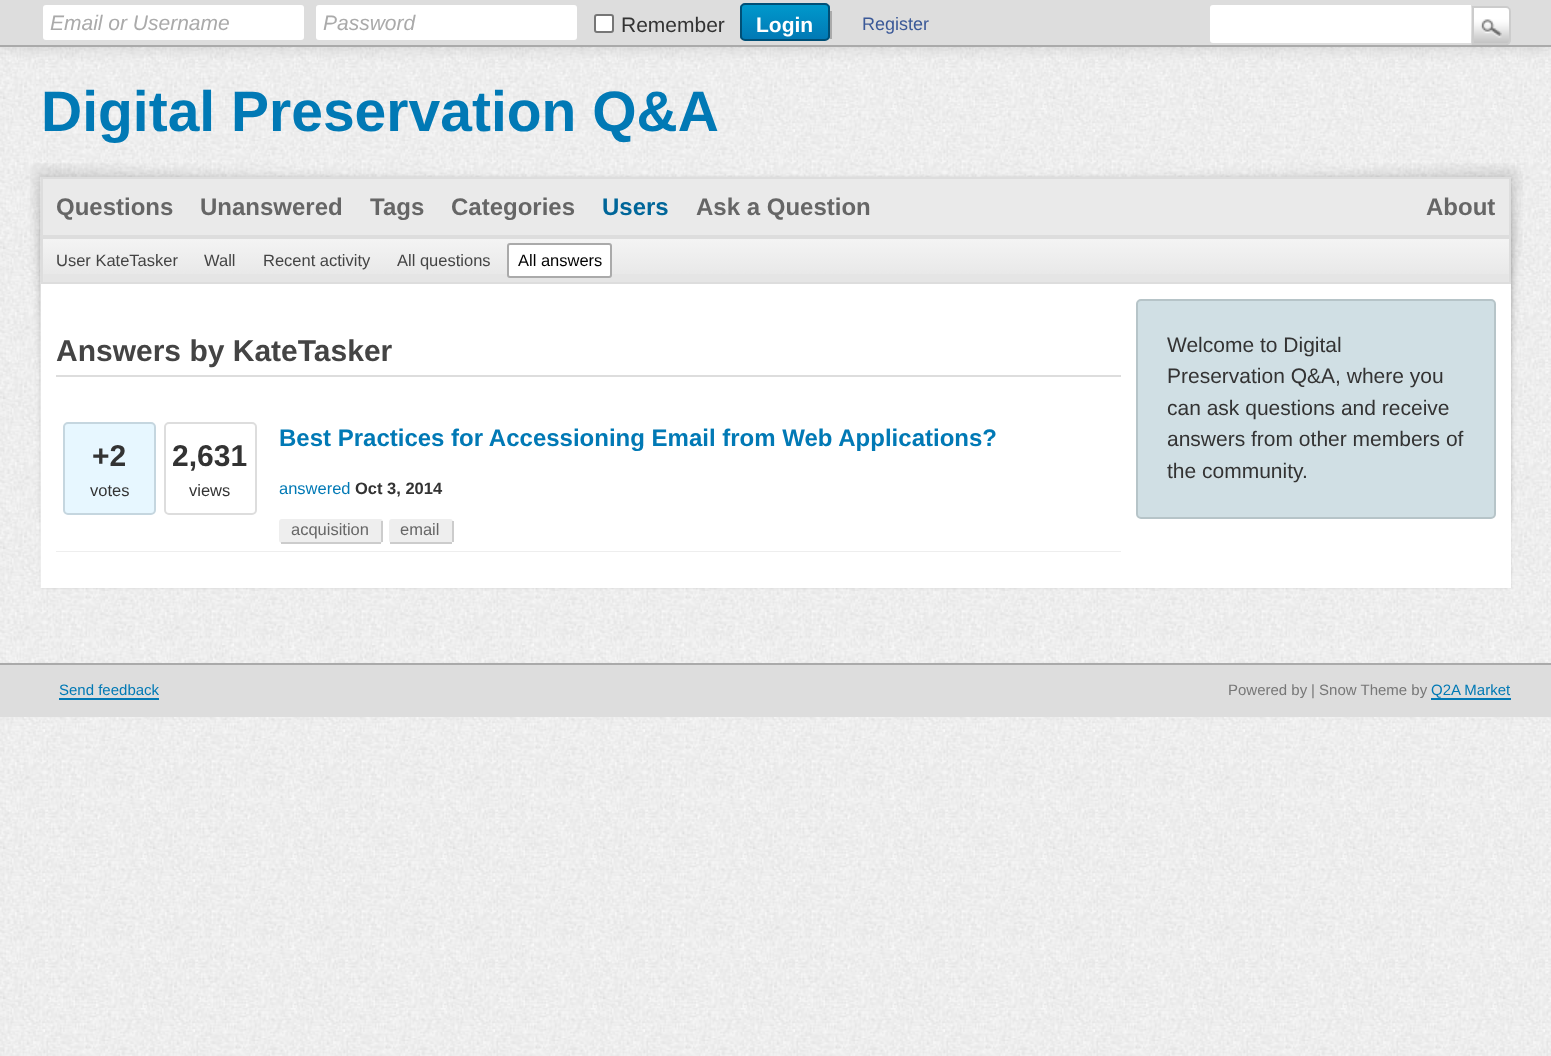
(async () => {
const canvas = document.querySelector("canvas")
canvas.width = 1551
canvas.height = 1056
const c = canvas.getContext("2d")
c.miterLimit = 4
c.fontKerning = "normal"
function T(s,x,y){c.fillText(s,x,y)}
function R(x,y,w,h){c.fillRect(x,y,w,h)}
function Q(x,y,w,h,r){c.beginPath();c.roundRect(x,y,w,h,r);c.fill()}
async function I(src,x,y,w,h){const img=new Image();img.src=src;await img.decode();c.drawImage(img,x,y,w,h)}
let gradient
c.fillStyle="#fff"
R(0,0,1551,1056)
await I("1.png",0,47,1551,1009)
c.fillStyle="#00000026"
c.filter="blur(7.5px)"
c.beginPath()
c.rect(0,0,1551,47)
c.fill()
c.filter="none"
c.fillStyle="#ddd"
R(0,0,1551,45)
c.fillStyle="#aaa"
R(0,45,1551,2)
c.fillStyle="#fff"
c.beginPath()
c.roundRect(42,4,263,37,4)
c.fill()
c.strokeStyle="#ddd"
c.lineWidth=2
c.stroke()
c.font="italic 21px Liberation Sans"
c.fillStyle="#aaa"
T("Email or Username",50,30)
c.fillStyle="#fff"
c.beginPath()
c.roundRect(315,4,263,37,4)
c.fill()
c.stroke()
c.fillStyle="#aaa"
T("Password",323,30)
c.fillStyle="#fff"
c.beginPath()
c.roundRect(595,15,18,17,2)
c.fill()
c.strokeStyle="#767676"
c.stroke()
c.font="21px Liberation Sans"
c.fillStyle="#333"
T("Remember",621,32)
c.save()
c.beginPath()
c.roundRect(740,3,90,38,5)
c.clip()
gradient = c.createLinearGradient(785,4.5,785,39)
gradient.addColorStop(0,"#09c")
gradient.addColorStop(1,"#0179b5")
c.fillStyle = gradient
R(740,5,90,34)
c.restore()
c.beginPath()
c.roundRect(741,4,88,36,4)
c.strokeStyle="#004f76"
c.stroke()
c.font="bold 21px Liberation Sans"
c.fillStyle="#fff"
T("Login",756,32)
c.fillStyle="#aaa"
R(830,11,2,28)
c.font="18px Liberation Sans"
c.fillStyle="#3b5998"
T("Register",862,30)
c.fillStyle="#fff"
c.beginPath()
c.roundRect(1209,4,263,40,[4,0,0,4])
c.fill()
c.strokeStyle="#ddd"
c.stroke()
await I("2.png",1471,7,40,38)
c.beginPath()
c.roundRect(1473,7,37,37,[0,4,4,0])
c.strokeStyle="#ccc"
c.stroke()
c.font="bold 57px Liberation Sans"
c.fillStyle="#0179b5"
T("Digital Preservation Q&A",41,131)
await I("3.png",30,163,1493,425)
c.fillStyle="#0000001a"
c.filter="blur(1.5px)"
c.beginPath()
c.rect(41,177,1470,411)
c.fill()
c.filter="none"
c.fillStyle="#fff"
R(41,284,1470,304)
c.fillStyle="#eaeaea"
c.beginPath()
c.rect(42,178,1468,58)
c.fill()
c.strokeStyle="#ddd"
c.stroke()
c.font="bold 24px Liberation Sans"
c.fillStyle="#666"
T("Questions",56,215)
T("Unanswered",200,215)
T("Tags",370,215)
T("Categories",451,215)
c.fillStyle="#069"
T("Users",602,215)
c.fillStyle="#666"
T("Ask a Question",696,215)
T("About",1426,215)
gradient = c.createLinearGradient(776,238,776,282)
gradient.addColorStop(0,"#f4f4f4")
gradient.addColorStop(1,"#e6e6e6")
c.fillStyle = gradient
R(43,239,1466,35)
c.strokeRect(42,238,1468,45)
c.font="16.5px Liberation Sans"
c.fillStyle="#444"
T("User KateTasker",56,266)
T("Wall",204,266)
T("Recent activity",263,266)
T("All questions",397,266)
c.fillStyle="#fff"
c.beginPath()
c.roundRect(508,244,103,33,2)
c.fill()
c.strokeStyle="#aaa"
c.stroke()
c.fillStyle="#000"
T("All answers",518,266)
c.fillStyle="#ddd"
R(56,375,1065,2)
c.font="bold 30px Liberation Sans"
c.fillStyle="#444"
T("Answers by KateTasker",56,361)
c.fillStyle="#eee"
R(56,551,1065,1)
c.fillStyle="#e7f7ff"
c.beginPath()
c.roundRect(64,423,91,91,4)
c.fill()
c.strokeStyle="#c5d6df"
c.stroke()
c.fillStyle="#333"
T("+2",92,466)
c.font="16.5px Liberation Sans"
T("votes",90,496)
c.beginPath()
c.roundRect(165,423,91,91,4)
c.strokeStyle="#ddd"
c.stroke()
c.font="bold 30px Liberation Sans"
T("2,631",172,466)
c.font="16.5px Liberation Sans"
T("views",189,496)
c.font="bold 24px Liberation Sans"
c.fillStyle="#0179b5"
T("Best Practices for Accessioning Email from Web Applications?",279,446)
c.font="16.5px Liberation Sans"
T("answered",279,494)
c.font="bold 16.5px Liberation Sans"
c.fillStyle="#333"
T("Oct 3, 2014",355,494)
c.fillStyle="#eee"
Q(279,519,104,24,3)
c.fillStyle="#ccc"
R(381,521,2,21)
R(281,542,100,2)
c.font="16.5px Liberation Sans"
c.fillStyle="#666"
T("acquisition",291,535)
c.fillStyle="#eee"
Q(389,519,64,24,3)
c.fillStyle="#ccc"
R(452,521,2,21)
R(390,542,62,2)
c.fillStyle="#666"
T("email",400,535)
c.fillStyle="#d0dfe4"
c.beginPath()
c.roundRect(1137,300,358,218,4)
c.fill()
c.strokeStyle="#b6c4c8"
c.stroke()
c.font="21px Liberation Sans"
c.fillStyle="#333"
T("Welcome to Digital",1167,352)
T("Preservation Q&A, where you",1167,383)
T("can ask questions and receive",1167,415)
T("answers from other members of",1167,446)
T("the community.",1167,478)
c.fillStyle="#ddd"
R(0,665,1551,52)
c.fillStyle="#aaa"
R(0,663,1551,2)
c.font="15px Liberation Sans"
c.fillStyle="#0179b5"
T("Send feedback",59,695)
R(59,698,100,2)
c.fillStyle="#777"
T("Powered by",1228,695)
T("| Snow Theme by",1311,695)
c.fillStyle="#0179b5"
T("Q2A Market",1431,695)
R(1431,698,80,2)
})()
